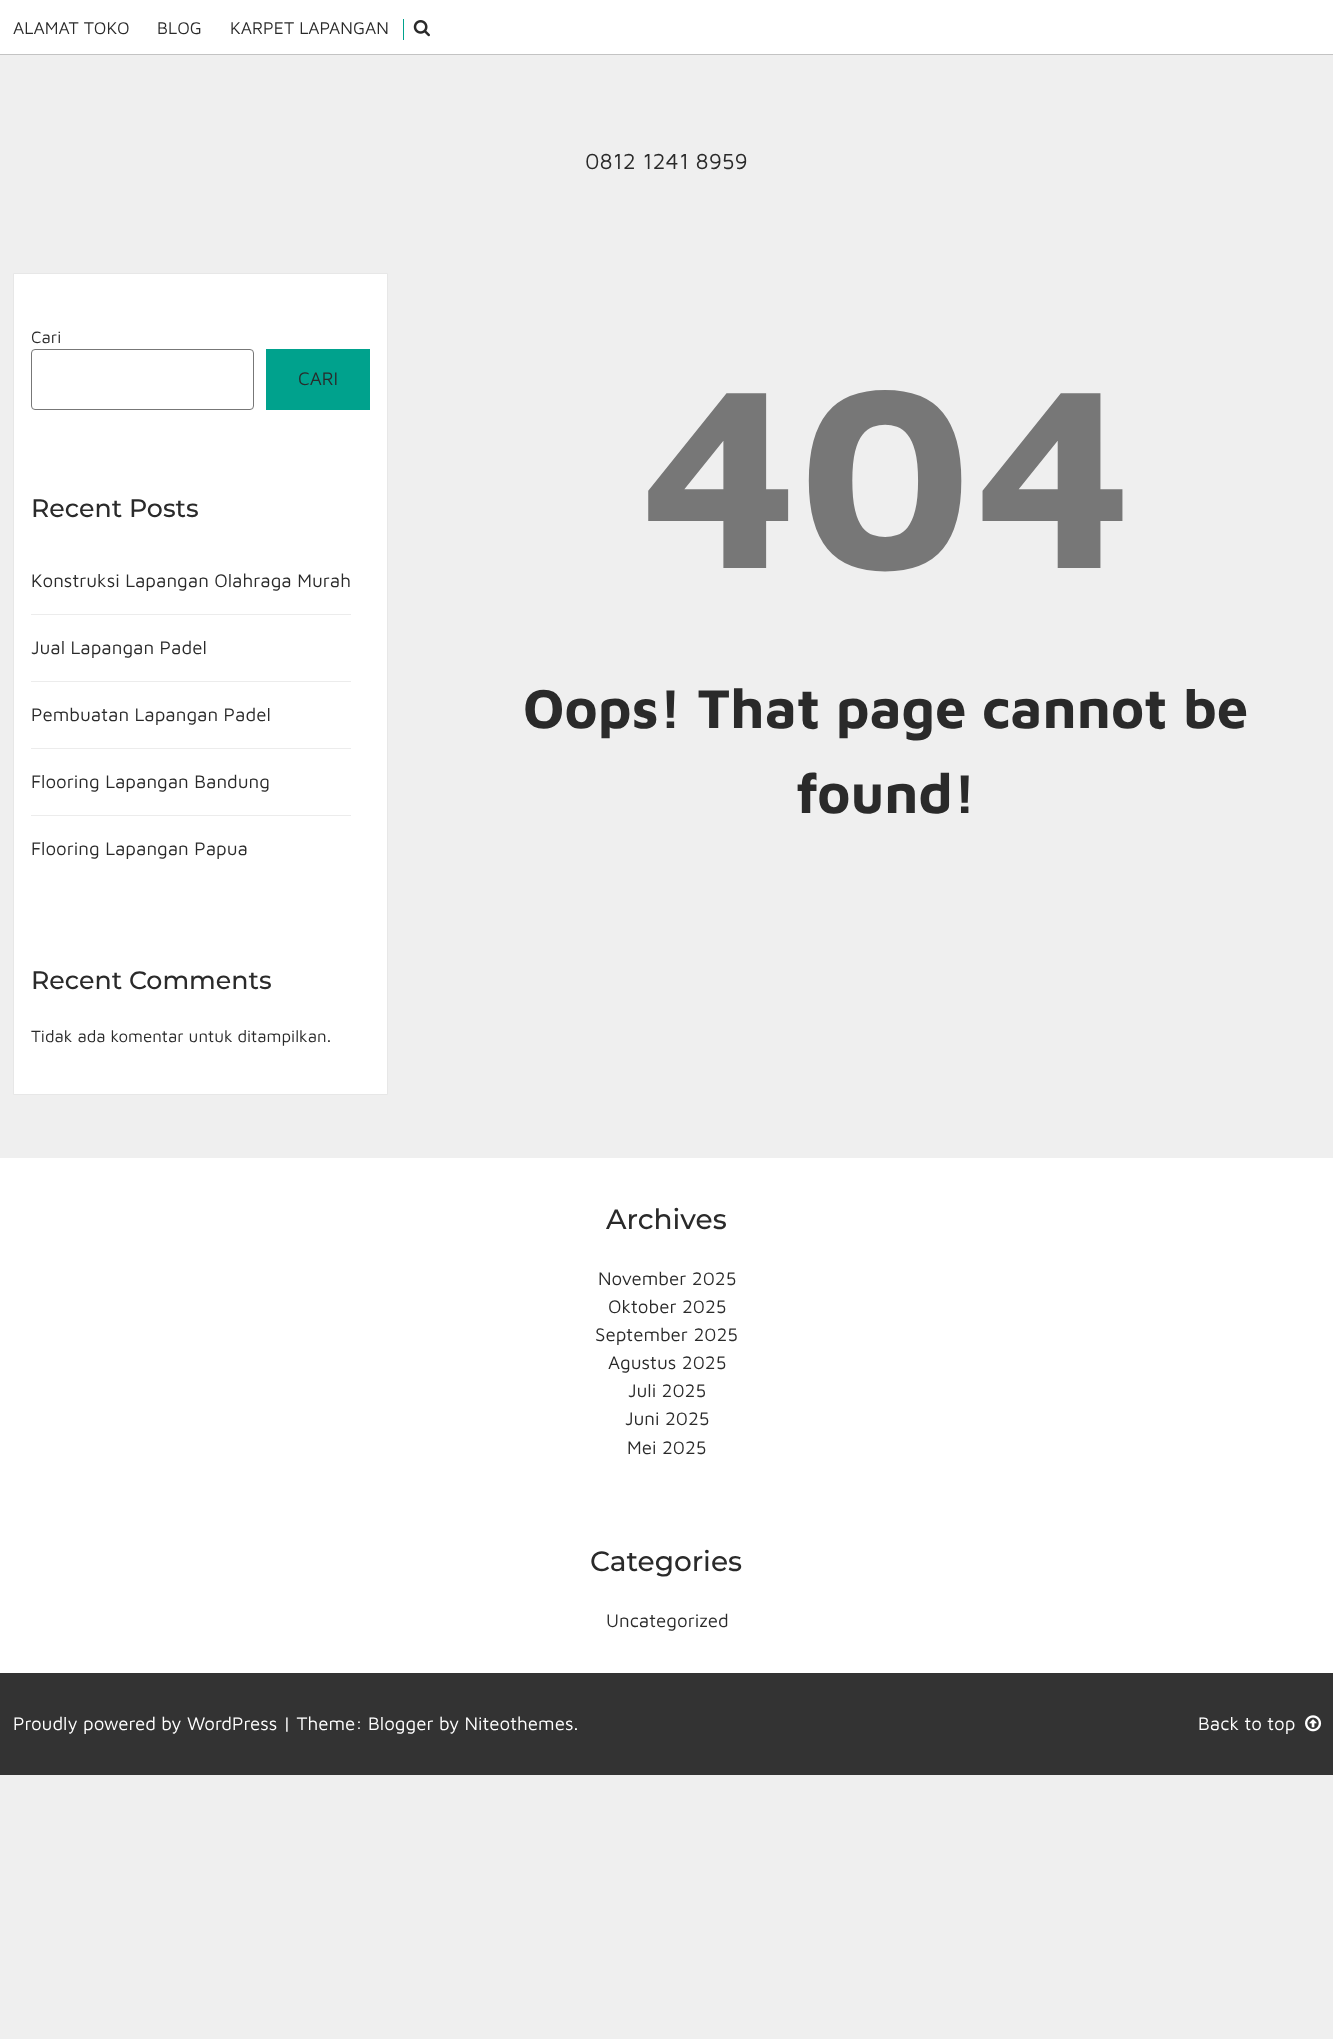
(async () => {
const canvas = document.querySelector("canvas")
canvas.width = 1333
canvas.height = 2039
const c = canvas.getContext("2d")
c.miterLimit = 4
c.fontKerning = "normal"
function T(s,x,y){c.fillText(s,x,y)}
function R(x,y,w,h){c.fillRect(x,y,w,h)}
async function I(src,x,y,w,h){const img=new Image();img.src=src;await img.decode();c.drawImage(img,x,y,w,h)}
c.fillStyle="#efefef"
R(0,0,1333,2039)
c.fillStyle="#fff"
R(0,0,1333,54)
c.fillStyle="#c3c3c3"
R(0,54,1333,1)
c.font="17.5px Maven Pro"
c.fillStyle="#2a2a2a"
T("ALAMAT TOKO",13,34)
T("BLOG",157,34)
T("KARPET LAPANGAN",230,34)
c.fillStyle="#00a28d"
R(403,19,1,21)
await I("1.png",413,20,17,17)
c.font="22.5px Maven Pro"
c.fillStyle="#2a2a2a"
T("0812 1241 8959",585,169)
c.fillStyle="#fff"
c.beginPath()
c.rect(13.5,273.5,374,821)
c.fill()
c.strokeStyle="#e7e7e7"
c.stroke()
c.font="16.9px Maven Pro"
c.fillStyle="#2a2a2a"
T("Cari",31,343)
c.beginPath()
c.roundRect(31.5,349.5,222,60,3.5)
c.strokeStyle="#777"
c.stroke()
c.fillStyle="#00a28d"
R(266,349,104,61)
c.font="18.75px Maven Pro"
c.fillStyle="#2a2a2a"
T("CARI",298,385)
c.font="100 25.25px Montserrat"
T("Recent Posts",31,517)
c.fillStyle="#ececec"
R(31,614,320,1)
c.font="18.75px Maven Pro"
c.fillStyle="#2a2a2a"
T("Konstruksi Lapangan Olahraga Murah",31,587)
c.fillStyle="#ececec"
R(31,681,320,1)
c.fillStyle="#2a2a2a"
T("Jual Lapangan Padel",31,654)
c.fillStyle="#ececec"
R(31,748,320,1)
c.fillStyle="#2a2a2a"
T("Pembuatan Lapangan Padel",31,721)
c.fillStyle="#ececec"
R(31,815,320,1)
c.fillStyle="#2a2a2a"
T("Flooring Lapangan Bandung",31,788)
T("Flooring Lapangan Papua",31,855)
c.font="100 25.25px Montserrat"
T("Recent Comments",31,989)
c.font="16.9px Maven Pro"
T("Tidak ada komentar untuk ditampilkan.",31,1042)
c.font="bold 262px Maven Pro"
c.fillStyle="#777"
T("404",638,568)
c.font="bold 56.25px Maven Pro"
c.fillStyle="#2a2a2a"
T("Oops! That page cannot be",523,728)
T("found!",796,813)
c.fillStyle="#fff"
R(0,1158,1333,515)
c.font="100 28px Montserrat"
c.fillStyle="#2a2a2a"
T("Archives",606,1229)
c.font="18.75px Maven Pro"
T("November 2025",598,1285)
T("Oktober 2025",608,1313)
T("September 2025",595,1341)
T("Agustus 2025",608,1369)
T("Juli 2025",628,1397)
T("Juni 2025",625,1425)
T("Mei 2025",627,1454)
c.font="100 28px Montserrat"
T("Categories",590,1571)
c.font="18.75px Maven Pro"
T("Uncategorized",606,1627)
c.fillStyle="#333"
R(0,1673,1333,102)
c.fillStyle="#fff"
T("Proudly powered by WordPress | Theme: Blogger by Niteothemes.",13,1730)
T("Back to top",1198,1730)
await I("2.png",1305,1715,17,17)
})()
